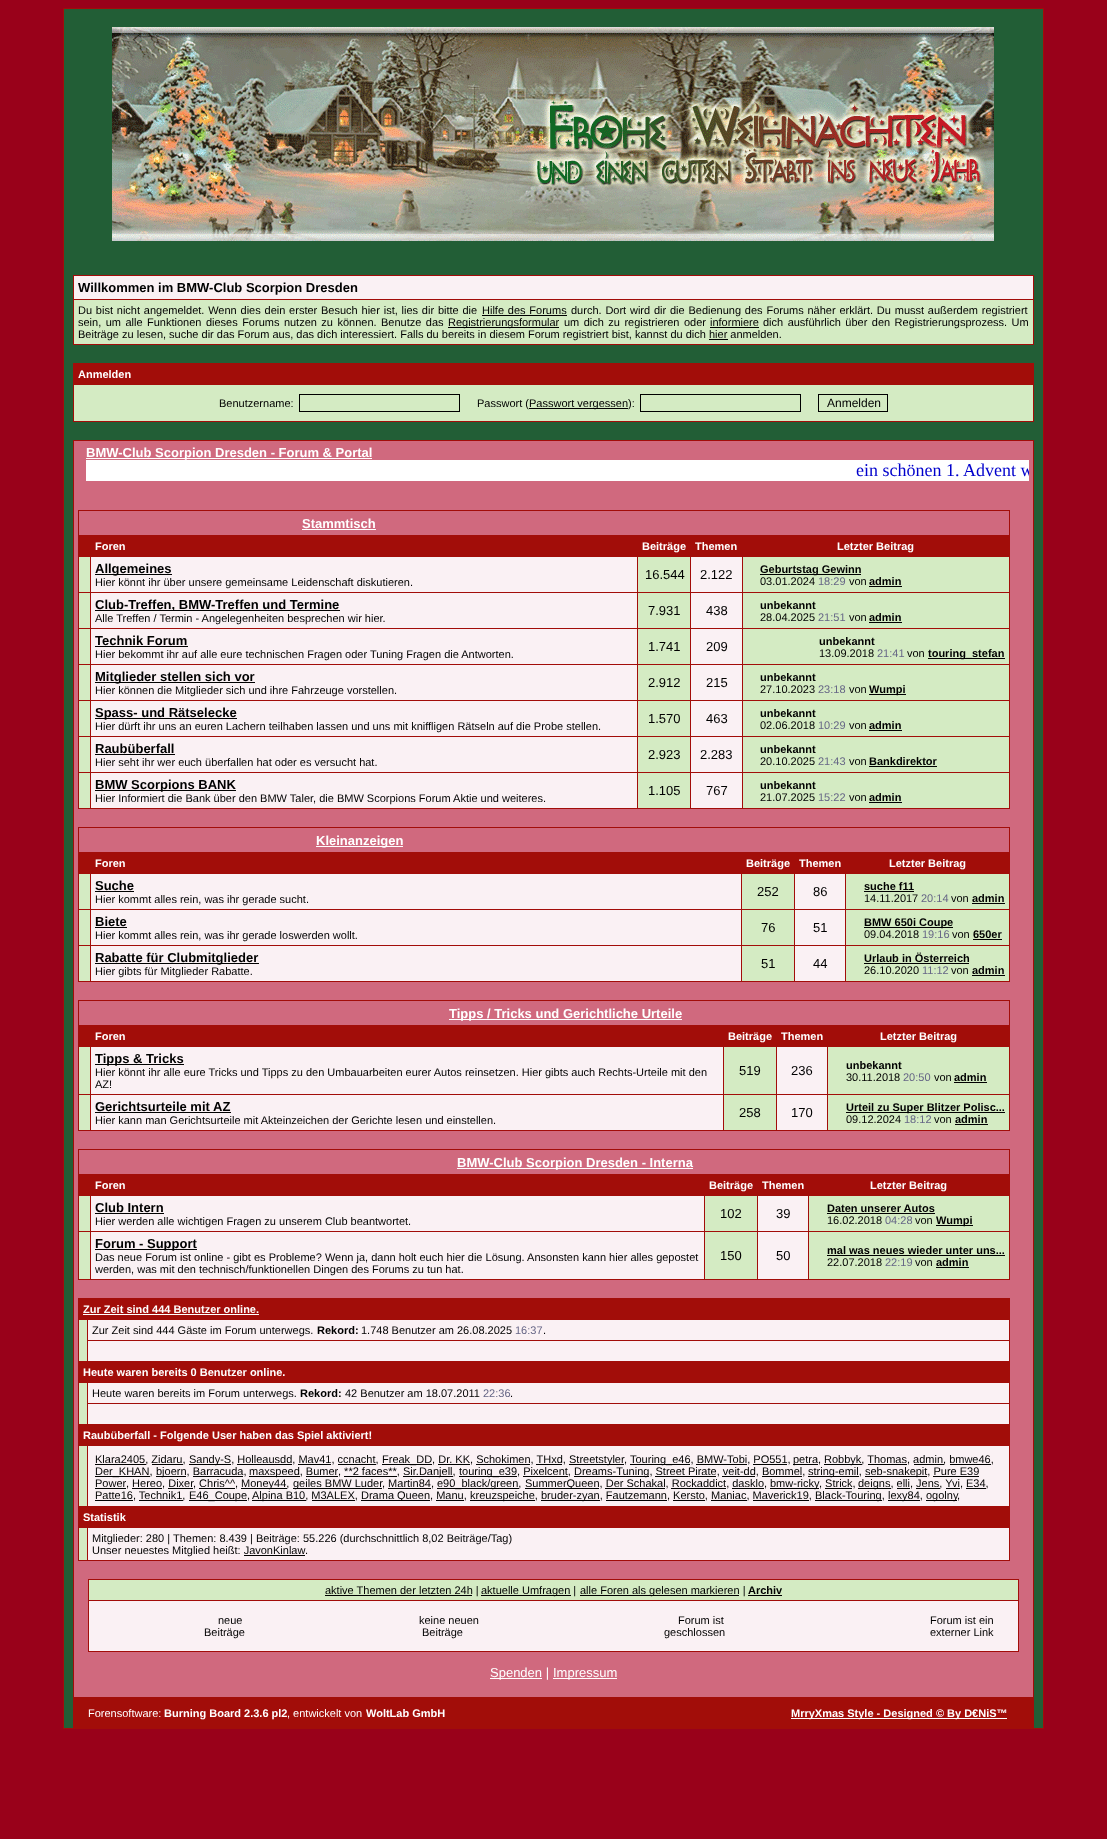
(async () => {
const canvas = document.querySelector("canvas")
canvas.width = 1107
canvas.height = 1839
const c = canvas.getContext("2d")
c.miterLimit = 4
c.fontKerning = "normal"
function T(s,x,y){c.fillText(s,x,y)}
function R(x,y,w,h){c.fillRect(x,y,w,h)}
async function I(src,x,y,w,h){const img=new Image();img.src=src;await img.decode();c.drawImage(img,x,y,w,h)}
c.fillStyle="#99011a"
R(0,0,1107,1839)
c.fillStyle="#a20d09"
R(63,8,981,1721)
c.fillStyle="#225e36"
R(64,9,979,1719)
await I("1.png",112,27,882,214)
c.fillStyle="#a20d09"
R(73,275,961,70)
c.fillStyle="#faf1f4"
R(74,276,959,23)
c.font="bold 13px Liberation Sans"
c.fillStyle="#000"
T("Willkommen im BMW-Club Scorpion Dresden",78,292)
c.fillStyle="#d4ebc3"
R(74,300,959,44)
c.wordSpacing="0.75px"
c.font="11px Liberation Sans"
c.fillStyle="#000"
T("Du bist nicht angemeldet. Wenn dies dein erster Besuch hier ist, lies dir bitte die",78,314)
T("Hilfe des Forums",482,314)
R(482,315,85,1)
T("durch. Dort wird dir die Bedienung des Forums näher erklärt. Du musst außerdem registriert",571,314)
c.wordSpacing="1.4px"
T("sein, um alle Funktionen dieses Forums nutzen zu können. Benutze das",78,326)
R(448,327,111,1)
c.wordSpacing="0px"
T("Registrierungsformular",448,326)
c.wordSpacing="1.4px"
T("um dich zu registrieren oder",564,326)
c.wordSpacing="0px"
T("informiere",710,326)
R(710,327,49,1)
c.wordSpacing="1.4px"
T("dich ausführlich über den Registrierungsprozess. Um",763,326)
c.wordSpacing="0px"
T("Beiträge zu lesen, suche dir das Forum aus, das dich interessiert. Falls du bereits in diesem Forum registriert bist, kannst du dich hier anmelden.",78,338)
R(709,339,19,1)
c.fillStyle="#a20d09"
R(73,363,961,59)
c.font="bold 11px Liberation Sans"
c.fillStyle="#fff"
T("Anmelden",78,378)
c.fillStyle="#d4ebc3"
R(74,385,959,36)
c.font="11px Liberation Sans"
c.fillStyle="#000"
T("Benutzername:",219,407)
c.strokeStyle="#000"
c.strokeRect(299.5,394.5,160,17)
T("Passwort (",477,407)
R(529,408,99,1)
T("Passwort vergessen):",529,407)
c.strokeRect(640.5,394.5,160,17)
c.strokeRect(818.5,394.5,69,17)
c.font="12px Liberation Sans"
T("Anmelden",827,407)
c.fillStyle="#a20d09"
R(73,440,961,1288)
c.fillStyle="#d0697e"
R(74,441,959,1256)
c.fillStyle="#fff"
R(86,458,286,1)
c.font="bold 13px Liberation Sans"
T("BMW-Club Scorpion Dresden - Forum & Portal",86,457)
R(86,460,943,21)
c.save()
c.beginPath()
c.rect(86,460,943,21)
c.clip()
c.font="18px Liberation Serif"
c.fillStyle="#00c"
T("ein schönen 1. Advent w",856,476)
c.restore()
c.fillStyle="#a20d09"
R(78,510,932,299)
c.fillStyle="#d0697e"
R(79,511,930,24)
c.fillStyle="#fff"
T("Stammtisch",302,528)
R(302,529,74,1)
c.font="bold 11px Liberation Sans"
T("Foren",95,550)
T("Beiträge",642,550)
T("Themen",695,550)
T("Letzter Beitrag",837,550)
c.fillStyle="#d4ebc3"
R(79,557,11,35)
c.fillStyle="#faf1f4"
R(91,557,546,35)
c.fillStyle="#000"
R(95,574,77,1)
c.font="bold 13px Liberation Sans"
T("Allgemeines",95,573)
c.font="11px Liberation Sans"
T("Hier könnt ihr über unsere gemeinsame Leidenschaft diskutieren.",95,586)
c.fillStyle="#d4ebc3"
R(638,557,52,35)
c.font="13px Liberation Sans"
c.fillStyle="#000"
T("16.544",645,579)
c.fillStyle="#faf1f4"
R(691,557,51,35)
c.fillStyle="#000"
T("2.122",700,579)
c.fillStyle="#d4ebc3"
R(743,557,266,35)
c.fillStyle="#000"
R(760,574,101,1)
c.font="bold 11px Liberation Sans"
T("Geburtstag Gewinn",760,573)
c.font="11px Liberation Sans"
T("03.01.2024",760,585)
c.fillStyle="#666686"
T("18:29",818,585)
c.fillStyle="#000"
T("von",849,585)
c.font="bold 11px Liberation Sans"
T("admin",869,585)
R(869,586,33,1)
c.fillStyle="#d4ebc3"
R(79,593,11,35)
c.fillStyle="#faf1f4"
R(91,593,546,35)
c.fillStyle="#000"
R(95,610,245,1)
c.font="bold 13px Liberation Sans"
T("Club-Treffen, BMW-Treffen und Termine",95,609)
c.font="11px Liberation Sans"
T("Alle Treffen / Termin - Angelegenheiten besprechen wir hier.",95,622)
c.fillStyle="#d4ebc3"
R(638,593,52,35)
c.font="13px Liberation Sans"
c.fillStyle="#000"
T("7.931",648,615)
c.fillStyle="#faf1f4"
R(691,593,51,35)
c.fillStyle="#000"
T("438",706,615)
c.fillStyle="#d4ebc3"
R(743,593,266,35)
c.font="bold 11px Liberation Sans"
c.fillStyle="#000"
T("unbekannt",760,609)
c.font="11px Liberation Sans"
T("28.04.2025",760,621)
c.fillStyle="#666686"
T("21:51",818,621)
c.fillStyle="#000"
T("von",849,621)
c.font="bold 11px Liberation Sans"
T("admin",869,621)
R(869,622,33,1)
c.fillStyle="#d4ebc3"
R(79,629,11,35)
c.fillStyle="#faf1f4"
R(91,629,546,35)
c.font="bold 13px Liberation Sans"
c.fillStyle="#000"
T("Technik Forum",95,645)
R(95,646,93,1)
c.font="11px Liberation Sans"
T("Hier bekommt ihr auf alle eure technischen Fragen oder Tuning Fragen die Antworten.",95,658)
c.fillStyle="#d4ebc3"
R(638,629,52,35)
c.font="13px Liberation Sans"
c.fillStyle="#000"
T("1.741",648,651)
c.fillStyle="#faf1f4"
R(691,629,51,35)
c.fillStyle="#000"
T("209",706,651)
c.fillStyle="#d4ebc3"
R(743,629,266,35)
c.font="bold 11px Liberation Sans"
c.fillStyle="#000"
T("unbekannt",819,645)
c.font="11px Liberation Sans"
T("13.09.2018",819,657)
c.fillStyle="#666686"
T("21:41",877,657)
c.fillStyle="#000"
T("von",907,657)
R(928,658,77,1)
c.font="bold 11px Liberation Sans"
T("touring_stefan",928,657)
c.fillStyle="#d4ebc3"
R(79,665,11,35)
c.fillStyle="#faf1f4"
R(91,665,546,35)
c.fillStyle="#000"
R(95,682,160,1)
c.font="bold 13px Liberation Sans"
T("Mitglieder stellen sich vor",95,681)
c.font="11px Liberation Sans"
T("Hier können die Mitglieder sich und ihre Fahrzeuge vorstellen.",95,694)
c.fillStyle="#d4ebc3"
R(638,665,52,35)
c.font="13px Liberation Sans"
c.fillStyle="#000"
T("2.912",648,687)
c.fillStyle="#faf1f4"
R(691,665,51,35)
c.fillStyle="#000"
T("215",706,687)
c.fillStyle="#d4ebc3"
R(743,665,266,35)
c.font="bold 11px Liberation Sans"
c.fillStyle="#000"
T("unbekannt",760,681)
c.font="11px Liberation Sans"
T("27.10.2023",760,693)
c.fillStyle="#666686"
T("23:18",818,693)
c.fillStyle="#000"
T("von",849,693)
R(869,694,37,1)
c.font="bold 11px Liberation Sans"
T("Wumpi",869,693)
c.fillStyle="#d4ebc3"
R(79,701,11,35)
c.fillStyle="#faf1f4"
R(91,701,546,35)
c.fillStyle="#000"
R(95,718,142,1)
c.font="bold 13px Liberation Sans"
T("Spass- und Rätselecke",95,717)
c.font="11px Liberation Sans"
T("Hier dürft ihr uns an euren Lachern teilhaben lassen und uns mit kniffligen Rätseln auf die Probe stellen.",95,730)
c.fillStyle="#d4ebc3"
R(638,701,52,35)
c.font="13px Liberation Sans"
c.fillStyle="#000"
T("1.570",648,723)
c.fillStyle="#faf1f4"
R(691,701,51,35)
c.fillStyle="#000"
T("463",706,723)
c.fillStyle="#d4ebc3"
R(743,701,266,35)
c.font="bold 11px Liberation Sans"
c.fillStyle="#000"
T("unbekannt",760,717)
c.font="11px Liberation Sans"
T("02.06.2018",760,729)
c.fillStyle="#666686"
T("10:29",818,729)
c.fillStyle="#000"
T("von",849,729)
c.font="bold 11px Liberation Sans"
T("admin",869,729)
R(869,730,33,1)
c.fillStyle="#d4ebc3"
R(79,737,11,35)
c.fillStyle="#faf1f4"
R(91,737,546,35)
c.font="bold 13px Liberation Sans"
c.fillStyle="#000"
T("Raubüberfall",95,753)
R(95,754,80,1)
c.font="11px Liberation Sans"
T("Hier seht ihr wer euch überfallen hat oder es versucht hat.",95,766)
c.fillStyle="#d4ebc3"
R(638,737,52,35)
c.font="13px Liberation Sans"
c.fillStyle="#000"
T("2.923",648,759)
c.fillStyle="#faf1f4"
R(691,737,51,35)
c.fillStyle="#000"
T("2.283",700,759)
c.fillStyle="#d4ebc3"
R(743,737,266,35)
c.font="bold 11px Liberation Sans"
c.fillStyle="#000"
T("unbekannt",760,753)
c.font="11px Liberation Sans"
T("20.10.2025",760,765)
c.fillStyle="#666686"
T("21:43",818,765)
c.fillStyle="#000"
T("von",849,765)
c.font="bold 11px Liberation Sans"
T("Bankdirektor",869,765)
R(869,766,68,1)
c.fillStyle="#d4ebc3"
R(79,773,11,35)
c.fillStyle="#faf1f4"
R(91,773,546,35)
c.fillStyle="#000"
R(95,790,141,1)
c.font="bold 13px Liberation Sans"
T("BMW Scorpions BANK",95,789)
c.font="11px Liberation Sans"
T("Hier Informiert die Bank über den BMW Taler, die BMW Scorpions Forum Aktie und weiteres.",95,802)
c.fillStyle="#d4ebc3"
R(638,773,52,35)
c.font="13px Liberation Sans"
c.fillStyle="#000"
T("1.105",648,795)
c.fillStyle="#faf1f4"
R(691,773,51,35)
c.fillStyle="#000"
T("767",706,795)
c.fillStyle="#d4ebc3"
R(743,773,266,35)
c.font="bold 11px Liberation Sans"
c.fillStyle="#000"
T("unbekannt",760,789)
c.font="11px Liberation Sans"
T("21.07.2025",760,801)
c.fillStyle="#666686"
T("15:22",818,801)
c.fillStyle="#000"
T("von",849,801)
c.font="bold 11px Liberation Sans"
T("admin",869,801)
R(869,802,33,1)
c.fillStyle="#a20d09"
R(78,827,932,155)
c.fillStyle="#d0697e"
R(79,828,930,24)
c.fillStyle="#fff"
R(316,846,87,1)
c.font="bold 13px Liberation Sans"
T("Kleinanzeigen",316,845)
c.font="bold 11px Liberation Sans"
T("Foren",95,867)
T("Beiträge",746,867)
T("Themen",799,867)
T("Letzter Beitrag",889,867)
c.fillStyle="#d4ebc3"
R(79,874,11,35)
c.fillStyle="#faf1f4"
R(91,874,650,35)
c.font="bold 13px Liberation Sans"
c.fillStyle="#000"
T("Suche",95,890)
R(95,891,39,1)
c.font="11px Liberation Sans"
T("Hier kommt alles rein, was ihr gerade sucht.",95,903)
c.fillStyle="#d4ebc3"
R(742,874,52,35)
c.font="13px Liberation Sans"
c.fillStyle="#000"
T("252",757,896)
c.fillStyle="#faf1f4"
R(795,874,50,35)
c.fillStyle="#000"
T("86",813,896)
c.fillStyle="#d4ebc3"
R(846,874,163,35)
c.font="bold 11px Liberation Sans"
c.fillStyle="#000"
T("suche f11",864,890)
R(864,891,50,1)
c.font="11px Liberation Sans"
T("14.11.2017",864,902)
c.fillStyle="#666686"
T("20:14",921,902)
c.fillStyle="#000"
T("von",951,902)
c.font="bold 11px Liberation Sans"
T("admin",972,902)
R(972,903,33,1)
c.fillStyle="#d4ebc3"
R(79,910,11,35)
c.fillStyle="#faf1f4"
R(91,910,650,35)
c.font="bold 13px Liberation Sans"
c.fillStyle="#000"
T("Biete",95,926)
R(95,927,32,1)
c.font="11px Liberation Sans"
T("Hier kommt alles rein, was ihr gerade loswerden wollt.",95,939)
c.fillStyle="#d4ebc3"
R(742,910,52,35)
c.font="13px Liberation Sans"
c.fillStyle="#000"
T("76",761,932)
c.fillStyle="#faf1f4"
R(795,910,50,35)
c.fillStyle="#000"
T("51",813,932)
c.fillStyle="#d4ebc3"
R(846,910,163,35)
c.fillStyle="#000"
R(864,927,89,1)
c.font="bold 11px Liberation Sans"
T("BMW 650i Coupe",864,926)
c.font="11px Liberation Sans"
T("09.04.2018",864,938)
c.fillStyle="#666686"
T("19:16",922,938)
c.fillStyle="#000"
T("von",952,938)
c.font="bold 11px Liberation Sans"
T("650er",973,938)
R(973,939,29,1)
c.fillStyle="#d4ebc3"
R(79,946,11,35)
c.fillStyle="#faf1f4"
R(91,946,650,35)
c.fillStyle="#000"
R(95,963,164,1)
c.font="bold 13px Liberation Sans"
T("Rabatte für Clubmitglieder",95,962)
c.font="11px Liberation Sans"
T("Hier gibts für Mitglieder Rabatte.",95,975)
c.fillStyle="#d4ebc3"
R(742,946,52,35)
c.font="13px Liberation Sans"
c.fillStyle="#000"
T("51",761,968)
c.fillStyle="#faf1f4"
R(795,946,50,35)
c.fillStyle="#000"
T("44",813,968)
c.fillStyle="#d4ebc3"
R(846,946,163,35)
c.font="bold 11px Liberation Sans"
c.fillStyle="#000"
T("Urlaub in Österreich",864,962)
R(864,963,105,1)
c.font="11px Liberation Sans"
T("26.10.2020",864,974)
c.fillStyle="#666686"
T("11:12",922,974)
c.fillStyle="#000"
T("von",951,974)
c.font="bold 11px Liberation Sans"
T("admin",972,974)
R(972,975,33,1)
c.fillStyle="#a20d09"
R(78,1000,932,131)
c.fillStyle="#d0697e"
R(79,1001,930,24)
c.fillStyle="#fff"
R(449,1019,233,1)
c.font="bold 13px Liberation Sans"
T("Tipps / Tricks und Gerichtliche Urteile",449,1018)
c.font="bold 11px Liberation Sans"
T("Foren",95,1040)
T("Beiträge",728,1040)
T("Themen",781,1040)
T("Letzter Beitrag",880,1040)
c.fillStyle="#d4ebc3"
R(79,1047,11,47)
c.fillStyle="#faf1f4"
R(91,1047,632,47)
c.fillStyle="#000"
R(95,1064,89,1)
c.font="bold 13px Liberation Sans"
T("Tipps & Tricks",95,1063)
c.font="11px Liberation Sans"
T("Hier könnt ihr alle eure Tricks und Tipps zu den Umbauarbeiten eurer Autos reinsetzen. Hier gibts auch Rechts-Urteile mit den",95,1076)
T("AZ!",95,1088)
c.fillStyle="#d4ebc3"
R(724,1047,52,47)
c.font="13px Liberation Sans"
c.fillStyle="#000"
T("519",739,1075)
c.fillStyle="#faf1f4"
R(777,1047,50,47)
c.fillStyle="#000"
T("236",791,1075)
c.fillStyle="#d4ebc3"
R(828,1047,181,47)
c.font="bold 11px Liberation Sans"
c.fillStyle="#000"
T("unbekannt",846,1069)
c.font="11px Liberation Sans"
T("30.11.2018",846,1081)
c.fillStyle="#666686"
T("20:50",903,1081)
c.fillStyle="#000"
T("von",934,1081)
c.font="bold 11px Liberation Sans"
T("admin",954,1081)
R(954,1082,33,1)
c.fillStyle="#d4ebc3"
R(79,1095,11,35)
c.fillStyle="#faf1f4"
R(91,1095,632,35)
c.font="bold 13px Liberation Sans"
c.fillStyle="#000"
T("Gerichtsurteile mit AZ",95,1111)
R(95,1112,136,1)
c.font="11px Liberation Sans"
T("Hier kann man Gerichtsurteile mit Akteinzeichen der Gerichte lesen und einstellen.",95,1124)
c.fillStyle="#d4ebc3"
R(724,1095,52,35)
c.font="13px Liberation Sans"
c.fillStyle="#000"
T("258",739,1117)
c.fillStyle="#faf1f4"
R(777,1095,50,35)
c.fillStyle="#000"
T("170",791,1117)
c.fillStyle="#d4ebc3"
R(828,1095,181,35)
c.fillStyle="#000"
R(846,1112,159,1)
c.font="bold 11px Liberation Sans"
T("Urteil zu Super Blitzer Polisc...",846,1111)
c.font="11px Liberation Sans"
T("09.12.2024",846,1123)
c.fillStyle="#666686"
T("18:12",904,1123)
c.fillStyle="#000"
T("von",934,1123)
c.font="bold 11px Liberation Sans"
T("admin",955,1123)
R(955,1124,33,1)
c.fillStyle="#a20d09"
R(78,1149,932,131)
c.fillStyle="#d0697e"
R(79,1150,930,24)
c.fillStyle="#fff"
R(457,1168,236,1)
c.font="bold 13px Liberation Sans"
T("BMW-Club Scorpion Dresden - Interna",457,1167)
c.font="bold 11px Liberation Sans"
T("Foren",95,1189)
T("Beiträge",709,1189)
T("Themen",762,1189)
T("Letzter Beitrag",870,1189)
c.fillStyle="#d4ebc3"
R(79,1196,11,35)
c.fillStyle="#faf1f4"
R(91,1196,613,35)
c.font="bold 13px Liberation Sans"
c.fillStyle="#000"
T("Club Intern",95,1212)
R(95,1213,69,1)
c.font="11px Liberation Sans"
T("Hier werden alle wichtigen Fragen zu unserem Club beantwortet.",95,1225)
c.fillStyle="#d4ebc3"
R(705,1196,52,35)
c.font="13px Liberation Sans"
c.fillStyle="#000"
T("102",720,1218)
c.fillStyle="#faf1f4"
R(758,1196,50,35)
c.fillStyle="#000"
T("39",776,1218)
c.fillStyle="#d4ebc3"
R(809,1196,200,35)
c.font="bold 11px Liberation Sans"
c.fillStyle="#000"
T("Daten unserer Autos",827,1212)
R(827,1213,108,1)
c.font="11px Liberation Sans"
T("16.02.2018",827,1224)
c.fillStyle="#666686"
T("04:28",885,1224)
c.fillStyle="#000"
T("von",915,1224)
R(936,1225,37,1)
c.font="bold 11px Liberation Sans"
T("Wumpi",936,1224)
c.fillStyle="#d4ebc3"
R(79,1232,11,47)
c.fillStyle="#faf1f4"
R(91,1232,613,47)
c.fillStyle="#000"
R(95,1249,102,1)
c.font="bold 13px Liberation Sans"
T("Forum - Support",95,1248)
c.font="11px Liberation Sans"
T("Das neue Forum ist online - gibt es Probleme? Wenn ja, dann holt euch hier die Lösung. Ansonsten kann hier alles gepostet",95,1261)
T("werden, was mit den technisch/funktionellen Dingen des Forums zu tun hat.",95,1273)
c.fillStyle="#d4ebc3"
R(705,1232,52,47)
c.font="13px Liberation Sans"
c.fillStyle="#000"
T("150",720,1260)
c.fillStyle="#faf1f4"
R(758,1232,50,47)
c.fillStyle="#000"
T("50",776,1260)
c.fillStyle="#d4ebc3"
R(809,1232,200,47)
c.font="bold 11px Liberation Sans"
c.fillStyle="#000"
T("mal was neues wieder unter uns...",827,1254)
R(827,1255,178,1)
c.font="11px Liberation Sans"
T("22.07.2018",827,1266)
c.fillStyle="#666686"
T("22:19",885,1266)
c.fillStyle="#000"
T("von",915,1266)
c.font="bold 11px Liberation Sans"
T("admin",936,1266)
R(936,1267,33,1)
c.fillStyle="#a20d09"
R(78,1298,932,263)
c.fillStyle="#fff"
T("Zur Zeit sind 444 Benutzer online.",83,1313)
R(83,1314,176,1)
c.fillStyle="#d4ebc3"
R(79,1320,8,41)
c.fillStyle="#faf1f4"
R(88,1320,921,20)
c.font="11px Liberation Sans"
c.fillStyle="#000"
T("Zur Zeit sind 444 Gäste im Forum unterwegs.",92,1334)
c.font="bold 11px Liberation Sans"
T("Rekord:",317,1334)
c.font="11px Liberation Sans"
T("1.748 Benutzer am 26.08.2025",361,1334)
c.fillStyle="#666686"
T("16:37",515,1334)
c.fillStyle="#000"
T(".",543,1334)
c.fillStyle="#faf1f4"
R(88,1341,921,20)
c.font="bold 11px Liberation Sans"
c.fillStyle="#fff"
T("Heute waren bereits 0 Benutzer online.",83,1376)
c.fillStyle="#d4ebc3"
R(79,1383,8,41)
c.fillStyle="#faf1f4"
R(88,1383,921,20)
c.font="11px Liberation Sans"
c.fillStyle="#000"
T("Heute waren bereits im Forum unterwegs.",92,1397)
c.font="bold 11px Liberation Sans"
T("Rekord:",300,1397)
c.font="11px Liberation Sans"
T("42 Benutzer am 18.07.2011",345,1397)
c.fillStyle="#666686"
T("22:36",483,1397)
c.fillStyle="#000"
T(".",510,1397)
c.fillStyle="#faf1f4"
R(88,1404,921,20)
c.font="bold 11px Liberation Sans"
c.fillStyle="#fff"
T("Raubüberfall - Folgende User haben das Spiel aktiviert!",83,1439)
c.fillStyle="#d4ebc3"
R(79,1446,8,60)
c.fillStyle="#faf1f4"
R(88,1446,921,60)
c.fillStyle="#000"
R(95,1464,51,1)
c.font="11px Liberation Sans"
T("Klara2405, Zidaru,",95,1463)
R(152,1464,31,1)
R(189,1464,42,1)
T("Sandy-S, Holleausdd, Mav41, ccnacht,",189,1463)
R(237,1464,55,1)
R(298,1464,33,1)
R(338,1464,38,1)
R(382,1464,50,1)
T("Freak_DD, Dr. KK, Schokimen, THxd,",382,1463)
R(438,1464,32,1)
R(476,1464,54,1)
R(536,1464,26,1)
R(569,1464,55,1)
T("Streetstyler",569,1463)
R(630,1464,60,1)
T("Touring_e46, BMW-Tobi, PO551,",630,1463)
R(696,1464,51,1)
R(753,1464,34,1)
R(793,1464,25,1)
T("petra,",793,1463)
R(824,1464,38,1)
T("Robbyk, Thomas, admin, bmwe46,",824,1463)
R(868,1464,39,1)
R(914,1464,30,1)
R(950,1464,41,1)
T(",",624,1463)
R(95,1476,55,1)
T("Der_KHAN,",95,1475)
R(156,1476,30,1)
T("bjoern, Barracuda,",156,1475)
R(193,1476,50,1)
R(249,1476,51,1)
T("maxspeed, Bumer",249,1475)
R(306,1476,32,1)
T(", **2 faces**,",338,1475)
R(344,1476,53,1)
R(403,1476,50,1)
T("Sir.Danjell,",403,1475)
R(459,1476,58,1)
T("touring_e39, Pixelcent,",459,1475)
R(523,1476,45,1)
R(574,1476,75,1)
T("Dreams-Tuning, Street Pirate, veit-dd, Bommel,",574,1475)
R(655,1476,61,1)
R(722,1476,33,1)
R(762,1476,40,1)
R(808,1476,51,1)
T("string-emil,",808,1475)
R(865,1476,62,1)
T("seb-snakepit, Pure E39",865,1475)
R(933,1476,46,1)
T("Power",95,1487)
T(", Hereo, Dixer",126,1487)
R(95,1488,31,1)
R(132,1488,30,1)
R(168,1488,25,1)
T(", Chris^^,",193,1487)
R(199,1488,36,1)
R(241,1488,46,1)
T("Money44,",241,1487)
R(293,1488,89,1)
T("geiles BMW Luder",293,1487)
T(", Martin84,",382,1487)
R(388,1488,43,1)
R(437,1488,82,1)
T("e90_black/green,",437,1487)
R(525,1488,74,1)
T("SummerQueen, Der Schakal, Rockaddict, dasklo,",525,1487)
R(605,1488,60,1)
R(671,1488,55,1)
R(732,1488,32,1)
R(770,1488,49,1)
T("bmw-ricky",770,1487)
T(", Strick,",819,1487)
R(825,1488,27,1)
R(858,1488,33,1)
T("deigns, elli, Jens, Yvi, E34,",858,1487)
R(897,1488,13,1)
R(916,1488,24,1)
R(946,1488,14,1)
R(966,1488,20,1)
R(95,1500,38,1)
T("Patte16, Technik1,",95,1499)
R(139,1500,44,1)
R(189,1500,58,1)
T("E46_Coupe,",189,1499)
R(252,1500,54,1)
T("Alpina B10, M3ALEX,",252,1499)
R(312,1500,43,1)
R(361,1500,69,1)
T("Drama Queen, Manu,",361,1499)
R(436,1500,28,1)
R(470,1500,65,1)
T("kreuzspeiche,",470,1499)
R(541,1500,59,1)
T("bruder-zyan, Fautzemann, Kersto, Maniac, Maverick19,",541,1499)
R(606,1500,61,1)
R(673,1500,32,1)
R(711,1500,36,1)
R(753,1500,56,1)
R(815,1500,67,1)
T("Black-Touring,",815,1499)
R(888,1500,32,1)
T("lexy84,",888,1499)
R(926,1500,31,1)
T("ogolny",926,1499)
T(",",957,1499)
c.font="bold 11px Liberation Sans"
c.fillStyle="#fff"
T("Statistik",83,1521)
c.fillStyle="#d4ebc3"
R(79,1528,8,32)
c.fillStyle="#faf1f4"
R(88,1528,921,32)
c.font="11px Liberation Sans"
c.fillStyle="#000"
T("Mitglieder: 280 | Themen: 8.439 | Beiträge: 55.226 (durchschnittlich 8,02 Beiträge/Tag)",92,1542)
T("Unser neuestes Mitglied heißt: JavonKinlaw",92,1554)
T(".",305,1554)
R(244,1555,61,1)
c.fillStyle="#a20d09"
R(88,1579,931,73)
c.fillStyle="#d4ebc3"
R(89,1580,929,20)
c.fillStyle="#000"
R(325,1595,147,1)
T("aktive Themen der letzten 24h |",325,1594)
R(481,1595,90,1)
T("aktuelle Umfragen |",481,1594)
R(580,1595,159,1)
T("alle Foren als gelesen markieren |",580,1594)
c.font="bold 11px Liberation Sans"
T("Archiv",748,1594)
R(748,1595,34,1)
c.fillStyle="#faf1f4"
R(89,1601,929,50)
c.font="11px Liberation Sans"
c.fillStyle="#000"
T("neue",218,1624)
T("Beiträge",204,1636)
T("keine neuen",419,1624)
T("Beiträge",422,1636)
T("Forum ist",678,1624)
T("geschlossen",664,1636)
T("Forum ist ein",930,1624)
T("externer Link",930,1636)
c.fillStyle="#fff"
R(490,1678,52,1)
c.font="13px Liberation Sans"
T("Spenden |",490,1677)
R(553,1678,64,1)
T("Impressum",553,1677)
c.font="11px Liberation Sans"
T("Forensoftware:",88,1717)
c.font="bold 11px Liberation Sans"
T("Burning Board 2.3.6 pl2",164,1717)
c.font="11px Liberation Sans"
T(", entwickelt von",287,1717)
c.font="bold 11px Liberation Sans"
T("WoltLab GmbH",366,1717)
R(791,1718,216,1)
T("MrryXmas Style - Designed © By D€NiS™",791,1717)
})()
